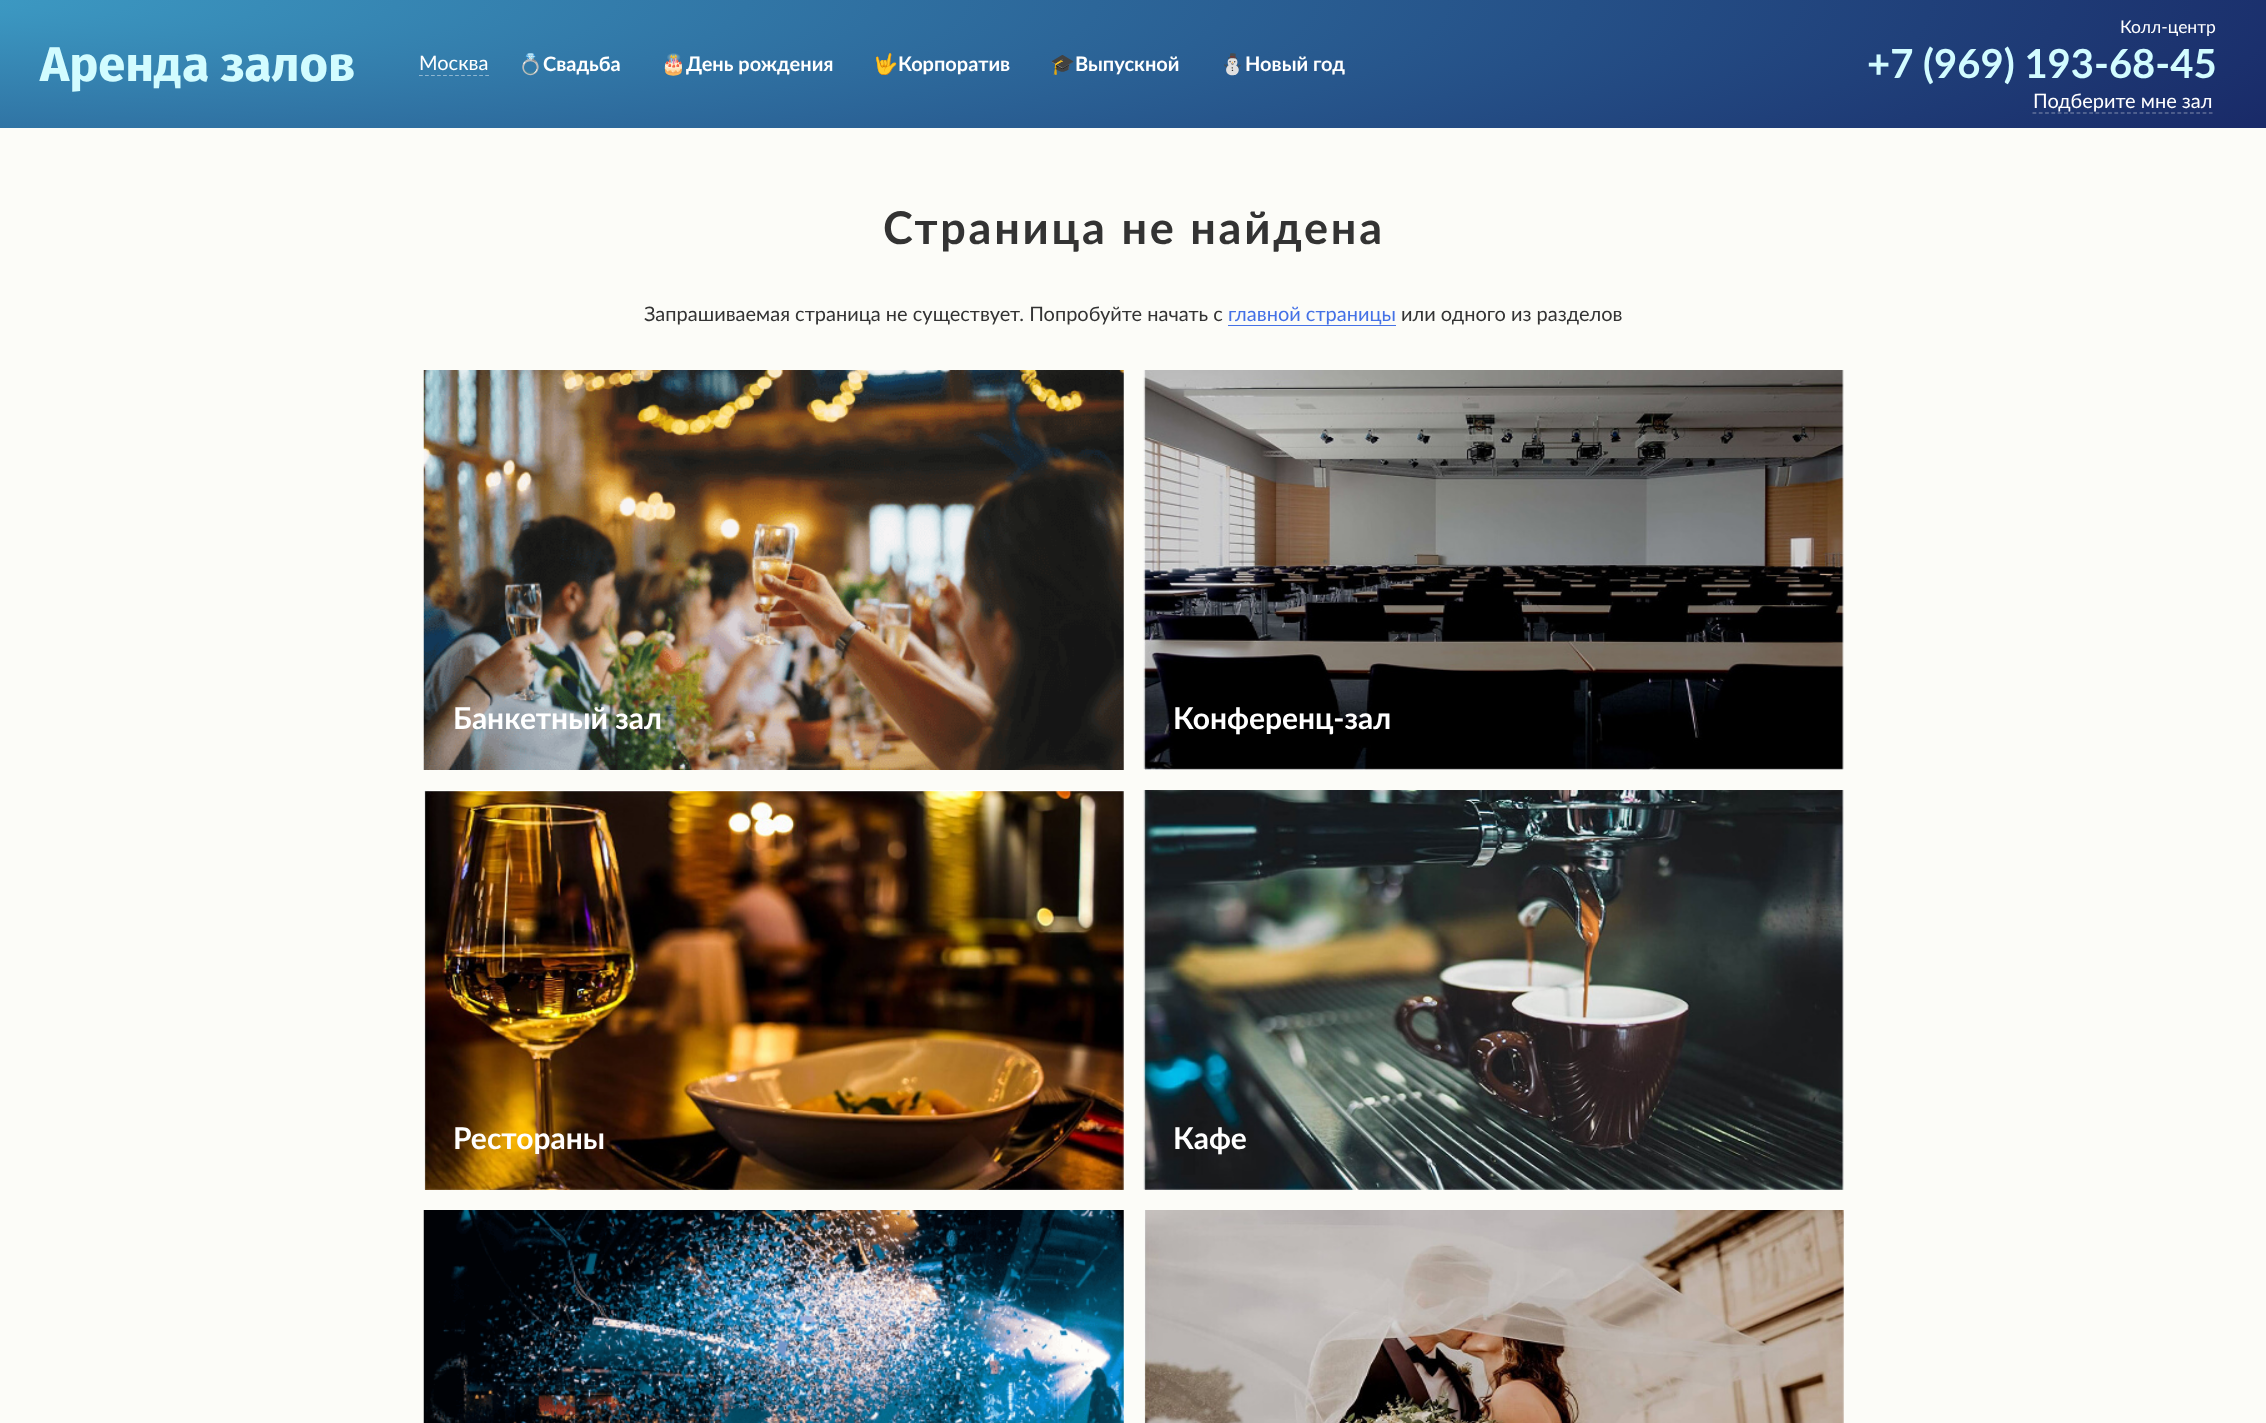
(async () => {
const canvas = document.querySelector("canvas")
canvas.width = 2266
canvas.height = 1423
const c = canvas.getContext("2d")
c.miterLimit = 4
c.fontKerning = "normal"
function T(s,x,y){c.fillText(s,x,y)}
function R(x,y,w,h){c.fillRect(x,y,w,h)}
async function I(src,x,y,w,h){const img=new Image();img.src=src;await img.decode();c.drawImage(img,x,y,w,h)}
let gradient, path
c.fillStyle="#fcfcf8"
R(0,0,2266,1423)
gradient = c.createRadialGradient(-87,0,0,-87,0,2499)
gradient.addColorStop(0,"#3d9cc5")
gradient.addColorStop(1,"#192a68")
c.fillStyle = gradient
c.beginPath()
c.rect(0,0,2266,128)
c.save()
c.clip()
c.scale(1,367 / 2499)
c.fillRect(0,0,2266,9690)
c.restore()
c.font="bold 48.75px Fira Sans"
c.fillStyle="#d2fcff"
T("Аренда залов",40,81)
path = new Path2D("M419 75.5h70")
c.strokeStyle="#90b7d1"
c.lineWidth=1.2
c.setLineDash([3.75,2.27])
c.stroke(path)
c.font="20px Lato"
c.fillStyle="#fff"
T("Москва",419,70)
c.font="bold 20px Noto Color Emoji"
T("💍",518,71)
c.font="bold 20px Lato"
T("Свадьба",543,71)
c.font="bold 20px Noto Color Emoji"
T("🎂",661,71)
c.font="bold 20px Lato"
T("День рождения",686,71)
c.font="bold 20px Noto Color Emoji"
T("🤟",873,71)
c.font="bold 20px Lato"
T("Корпоратив",898,71)
c.font="bold 20px Noto Color Emoji"
T("🎓",1050,71)
c.font="bold 20px Lato"
T("Выпускной",1075,71)
c.font="bold 20px Noto Color Emoji"
T("⛄",1220,71)
c.font="bold 20px Lato"
T("Новый год",1245,71)
c.font="17.5px Lato"
T("Колл-центр",2120,33)
c.font="bold 40px Lato"
c.fillStyle="#d2fcff"
T("+7 (969) 193-68-45",1867,78)
path = new Path2D("M2032.5 113h180")
c.strokeStyle="#ffffff75"
c.setLineDash([3.75,2.55])
c.stroke(path)
c.font="20px Lato"
c.fillStyle="#fff"
T("Подберите мне зал",2033,108)
c.letterSpacing="2.75px"
c.font="bold 45px Lato"
c.fillStyle="#333"
T("Страница не найдена",883,244)
c.letterSpacing="0px"
c.font="20px Lato"
T("Запрашиваемая страница не существует. Попробуйте начать с",644,321)
c.fillStyle="#4471e6"
T("главной страницы",1228,321)
R(1228,325,168,1)
c.fillStyle="#333"
T("или одного из разделов",1401,321)
await I("1.png",423,370,701,400)
c.font="bold 30px Lato"
c.fillStyle="#fff"
T("Банкетный зал",453,729)
await I("2.png",1143,370,701,400)
T("Конференц-зал",1173,729)
await I("3.png",424,790,700,400)
T("Рестораны",453,1149)
await I("4.png",1143,790,701,400)
T("Кафе",1173,1149)
await I("5.png",423,1210,701,213)
await I("6.png",1144,1210,700,213)
})()
